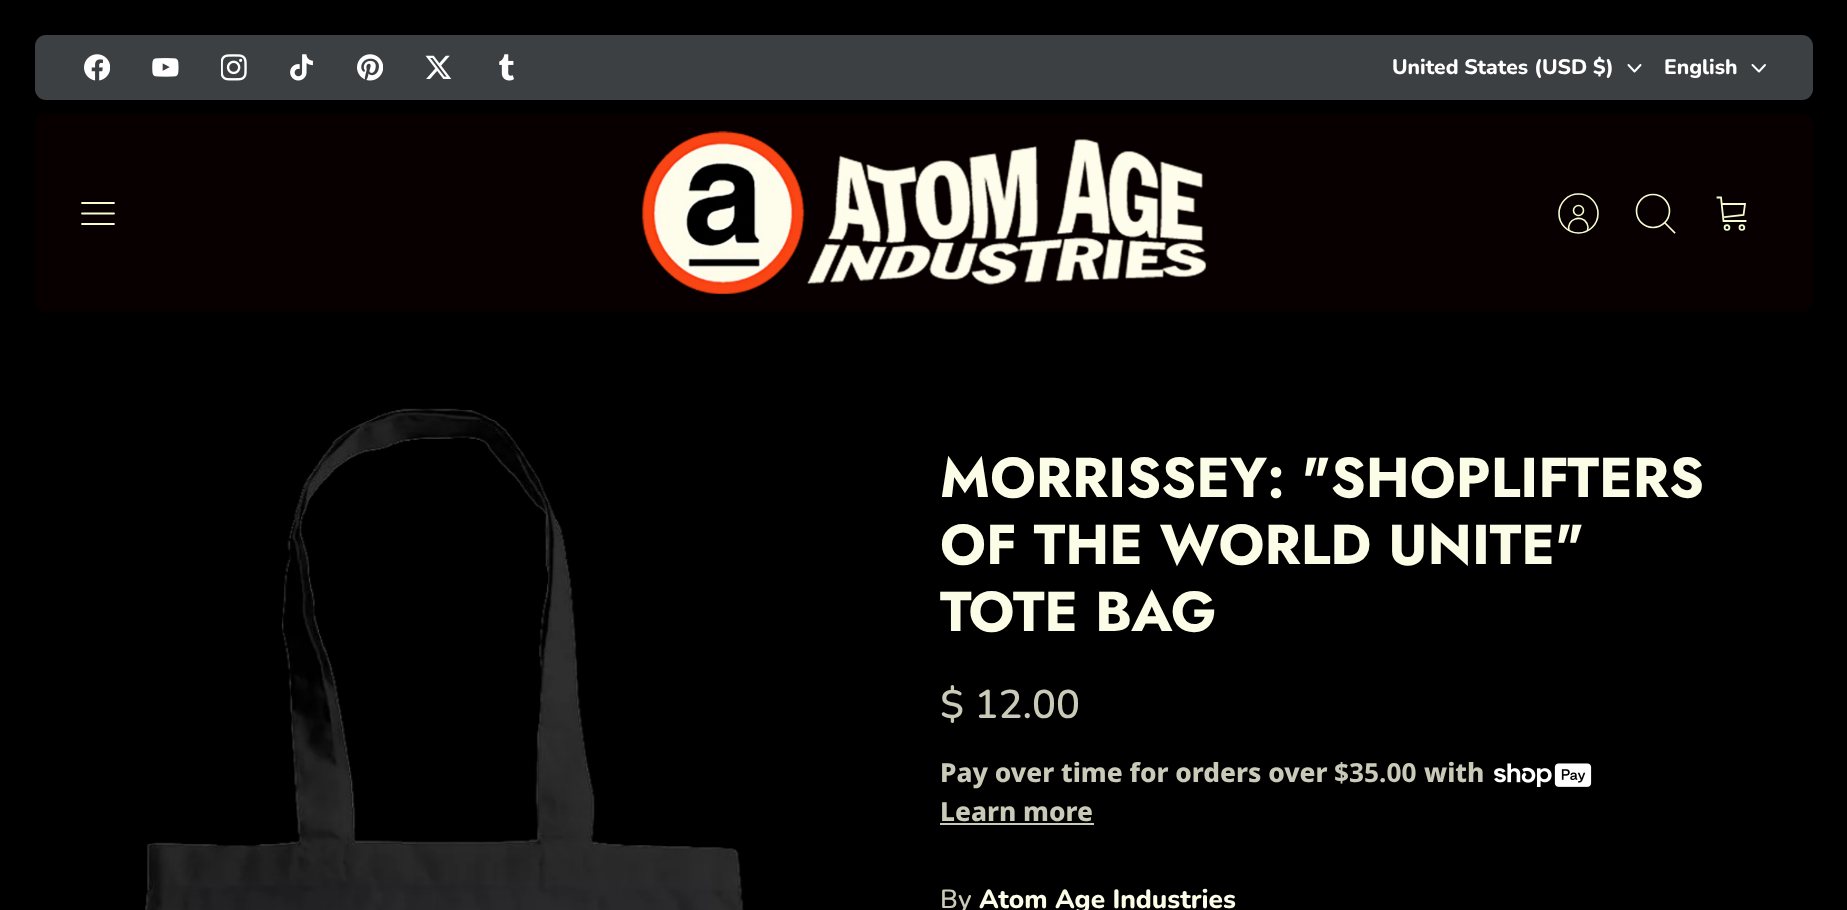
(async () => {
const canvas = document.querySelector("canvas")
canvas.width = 1847
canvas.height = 910
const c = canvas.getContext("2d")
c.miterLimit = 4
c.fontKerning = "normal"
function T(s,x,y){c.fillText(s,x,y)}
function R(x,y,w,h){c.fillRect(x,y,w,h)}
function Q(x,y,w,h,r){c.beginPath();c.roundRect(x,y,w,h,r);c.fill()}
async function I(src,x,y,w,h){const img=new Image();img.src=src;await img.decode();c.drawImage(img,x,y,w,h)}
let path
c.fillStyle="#000"
R(0,0,1847,910)
c.fillStyle="#3c4043"
Q(35,35,1778,65,11)
await I("1.png",84,54,26,27)
await I("2.png",152,58,27,19)
await I("3.png",221,54,26,27)
await I("4.png",290,54,23,27)
await I("5.png",357,54,26,27)
await I("6.png",425,55,27,24)
await I("7.png",499,54,15,27)
c.font="800 21px Nunito"
c.fillStyle="#fff"
T("United States (USD $)",1392,74)
path = new Path2D("M1628.5 65l6 6.5l6-6.5")
c.strokeStyle="#fff"
c.lineWidth=2
c.lineCap="round"
c.lineJoin="round"
c.stroke(path)
T("English",1664,74)
path = new Path2D("M1752.5 65l6.5 6.5l6-6.5")
c.stroke(path)
c.fillStyle="#080000"
Q(35,114,1778,198,11)
path = new Path2D("M82 213.5h32m-32-10.5h32m-32 21h32")
c.strokeStyle="#f4fdce"
c.lineWidth=1.8
c.stroke(path)
await I("8.png",642,131,565,163)
path = new Path2D("M1587.5 230.5c1-2.5 .5-5-.5-7c-5.5-10-21-4-18 7")
c.lineWidth=1.6
c.lineCap="butt"
c.lineJoin="miter"
c.stroke(path)
c.beginPath()
c.arc(1578.5,210.5,5,0,7)
c.stroke()
c.beginPath()
c.arc(1578.5,213.5,19.5,0,7)
c.stroke()
c.beginPath()
c.arc(1653,211,16.5,0,7)
c.stroke()
path = new Path2D("M1665 223l9.5 9.5")
c.lineCap="square"
c.stroke(path)
path = new Path2D("M1717.5 197.5h3.5l2.5 23.5h22m-23-17h22.5l-1.5 11l-18.5 2")
c.lineWidth=1.8
c.stroke(path)
c.beginPath()
c.arc(1727,227.5,2.4,0,7)
c.stroke()
c.beginPath()
c.arc(1741.9,227.5,2.4,0,7)
c.stroke()
await I("9.png",145,408,599,502)
c.font="bold 56px Jost"
c.fillStyle="#fcfde6"
T("MORRISSEY: \"SHOPLIFTERS",940,497)
T("OF THE WORLD UNITE\"",940,564)
T("TOTE BAG",940,631)
c.font="600 40px Nunito"
c.fillStyle="#cacab8"
T("$ 12.00",940,718)
c.font="800 26.25px Noto Sans"
T("Pay over time for orders over",940,782)
c.font="bold 26.25px Noto Sans"
T("$35.00",1334,782)
c.font="800 26.25px Noto Sans"
T("with",1424,782)
await I("10.png",1494,763,98,24)
T("Learn more",940,821)
R(940,823,154,2)
c.font="600 26.25px Nunito"
T("By",940,908)
c.font="800 26.25px Nunito"
c.fillStyle="#fcfde6"
T("Atom Age Industries",979,908)
})()
